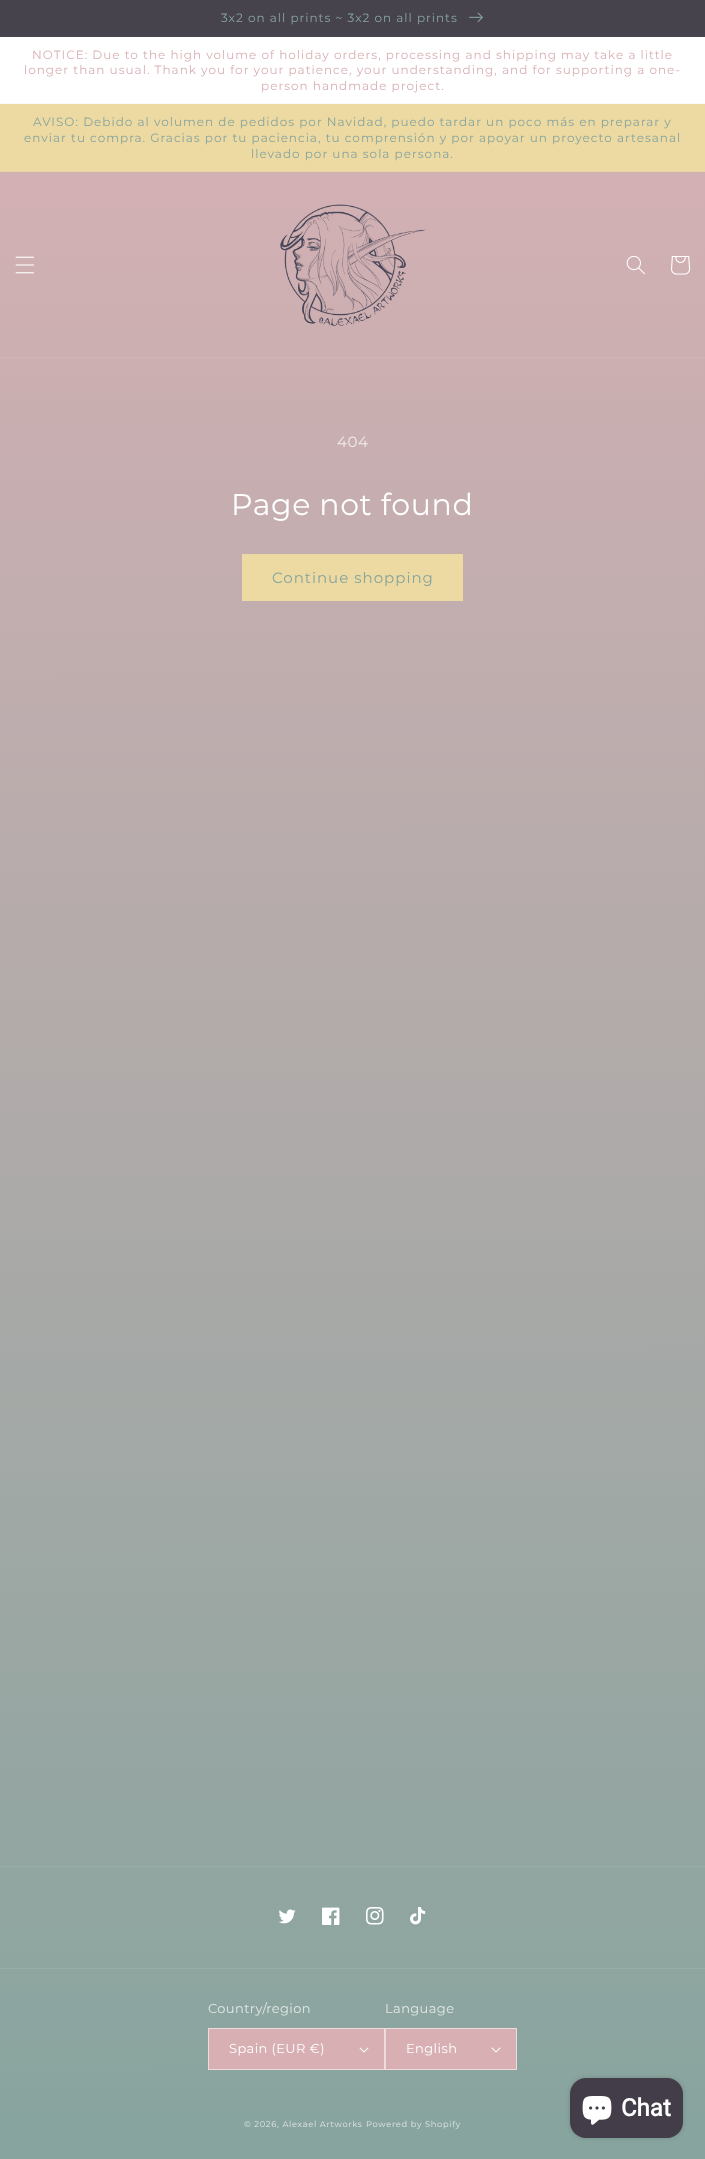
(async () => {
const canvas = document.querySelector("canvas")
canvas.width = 705
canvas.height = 2159
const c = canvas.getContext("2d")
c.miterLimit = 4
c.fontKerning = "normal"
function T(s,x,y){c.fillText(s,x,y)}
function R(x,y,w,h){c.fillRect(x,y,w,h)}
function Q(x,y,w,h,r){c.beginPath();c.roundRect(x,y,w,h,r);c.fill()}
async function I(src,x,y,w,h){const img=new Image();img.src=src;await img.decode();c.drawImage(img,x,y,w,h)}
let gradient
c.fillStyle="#fff"
R(0,0,705,2159)
gradient = c.createLinearGradient(352,0,353,2159)
gradient.addColorStop(0,"#d9b1b5")
gradient.addColorStop(1,"#87a49e")
c.fillStyle = gradient
R(0,172,705,1987)
c.fillStyle="#48454f"
R(0,36,705,1)
c.fillStyle="#46434d"
R(0,0,705,36)
c.letterSpacing="1px"
c.font="100 12px Montserrat"
c.fillStyle="#87a49e"
T("3x2 on all prints ~ 3x2 on all prints",221,22)
await I("1.png",469,12,14,11)
c.fillStyle="#fcf9f9"
R(0,103,705,1)
c.fillStyle="#d8b0b4"
T("NOTICE: Due to the high volume of holiday orders, processing and shipping may take a little",32,59)
T("longer than usual. Thank you for your patience, your understanding, and for supporting a one-",24,74)
T("person handmade project.",261,90)
c.fillStyle="#eddaa2"
R(0,104,705,67)
c.fillStyle="#e5d6a2"
R(0,171,705,1)
c.fillStyle="#87a49e"
T("AVISO: Debido al volumen de pedidos por Navidad, puedo tardar un poco más en preparar y",33,126)
T("enviar tu compra. Gracias por tu paciencia, tu comprensión y por apoyar un proyecto artesanal",24,142)
T("llevado por una sola persona.",251,158)
c.fillStyle="#cfb5b7"
R(0,357,705,1)
await I("2.png",15,256,19,18)
await I("3.png",280,204,146,122)
await I("4.png",626,255,19,20)
await I("5.png",671,256,20,19)
c.letterSpacing="0.6px"
c.font="100 15px Montserrat"
c.fillStyle="#f1ebeb"
T("404",337,447)
c.font="100 30px Montserrat"
c.fillStyle="#fff"
T("Page not found",231,515)
c.fillStyle="#eddaa2"
R(242,554,221,47)
c.letterSpacing="1px"
c.font="100 15px Montserrat"
c.fillStyle="#87a49e"
T("Continue shopping",272,583)
c.fillStyle="#9bada9"
R(0,1866,705,1)
await I("6.png",278,1909,18,15)
await I("7.png",322,1907,18,18)
await I("8.png",366,1907,18,18)
await I("9.png",410,1907,16,18)
c.fillStyle="#97aca8"
R(0,1968,705,1)
c.letterSpacing="0.4px"
c.font="100 13px Montserrat"
c.fillStyle="#e1e8e7"
T("Country/region",208,2013)
c.fillStyle="#d8b0b4"
R(209,2029,175,40)
await I("10.png",359,2047,10,6)
c.strokeStyle="#eddbdd"
c.strokeRect(208.5,2028.5,176,41)
c.fillStyle="#fff"
T("Spain (EUR €)",229,2053)
c.fillStyle="#e1e8e7"
T("Language",385,2013)
c.fillStyle="#d8b0b4"
R(386,2029,130,40)
await I("10.png",491,2047,10,6)
c.strokeRect(385.5,2028.5,131,41)
c.fillStyle="#fff"
T("English",406,2053)
c.letterSpacing="0.7px"
c.font="100 8.3px Montserrat"
c.fillStyle="#e1e8e7"
T("© 2026, Alexael Artworks",244,2127)
T("Powered by Shopify",366,2127)
c.fillStyle="#00000026"
c.filter="blur(2.5px)"
c.beginPath()
c.roundRect(570,2078,113,60,16)
c.fill()
c.filter="none"
c.fillStyle="#423d48"
Q(570,2078,113,60,16)
await I("11.png",582,2096,30,29)
c.letterSpacing="0px"
c.font="bold 24px Roboto"
c.fillStyle="#fff"
T("Chat",621,2116)
})()
